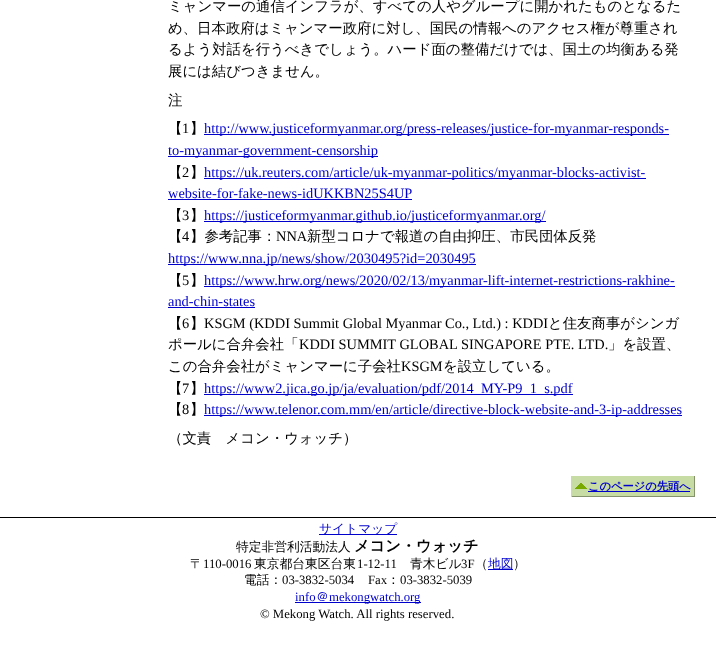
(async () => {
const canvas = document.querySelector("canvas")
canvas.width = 716
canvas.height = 647
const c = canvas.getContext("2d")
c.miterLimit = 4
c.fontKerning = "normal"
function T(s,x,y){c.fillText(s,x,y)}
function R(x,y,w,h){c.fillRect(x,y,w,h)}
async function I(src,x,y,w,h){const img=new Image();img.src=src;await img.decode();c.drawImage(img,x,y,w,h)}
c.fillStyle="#fff"
R(0,0,716,647)
c.font="500 14.4px WenQuanYi Zen Hei"
c.fillStyle="#000"
T("ミャンマーの通信インフラが、すべての人やグループに開かれたものとなるた",168,11)
T("め、日本政府はミャンマー政府に対し、国民の情報へのアクセス権が尊重され",168,33)
T("るよう対話を行うべきでしょう。ハード面の整備だけでは、国土の均衡ある発",168,54)
T("展には結びつきません。",168,76)
T("注",168,105)
T("【",168,133)
c.font="14.4px Liberation Serif"
T("1",182,133)
c.font="500 14.4px WenQuanYi Zen Hei"
T("】",190,133)
c.fillStyle="#00c"
R(204,134,465,1)
c.font="14.4px Liberation Serif"
T("http://www.justiceformyanmar.org/press-releases/justice-for-myanmar-responds-",204,133)
R(168,156,210,1)
T("to-myanmar-government-censorship",168,155)
c.font="500 14.4px WenQuanYi Zen Hei"
c.fillStyle="#000"
T("【",168,177)
c.font="14.4px Liberation Serif"
T("2",182,177)
c.font="500 14.4px WenQuanYi Zen Hei"
T("】",190,177)
c.fillStyle="#00c"
R(204,178,442,1)
c.font="14.4px Liberation Serif"
T("https://uk.reuters.com/article/uk-myanmar-politics/myanmar-blocks-activist-",204,177)
T("website-for-fake-news-idUKKBN25S4UP",168,198)
R(168,199,244,1)
c.font="500 14.4px WenQuanYi Zen Hei"
c.fillStyle="#000"
T("【",168,220)
c.font="14.4px Liberation Serif"
T("3",182,220)
c.font="500 14.4px WenQuanYi Zen Hei"
T("】",190,220)
c.fillStyle="#00c"
R(204,221,342,1)
c.font="14.4px Liberation Serif"
T("https://justiceformyanmar.github.io/justiceformyanmar.org/",204,220)
c.font="500 14.4px WenQuanYi Zen Hei"
c.fillStyle="#000"
T("【",168,241)
c.font="14.4px Liberation Serif"
T("4",182,241)
c.font="500 14.4px WenQuanYi Zen Hei"
T("】参考記事：",190,241)
c.font="14.4px Liberation Serif"
T("NNA",276,241)
c.font="500 14.4px WenQuanYi Zen Hei"
T("新型コロナで報道の自由抑圧、市民団体反発",307,241)
c.fillStyle="#00c"
R(168,264,308,1)
c.font="14.4px Liberation Serif"
T("https://www.nna.jp/news/show/2030495?id=2030495",168,263)
c.font="500 14.4px WenQuanYi Zen Hei"
c.fillStyle="#000"
T("【",168,285)
c.font="14.4px Liberation Serif"
T("5",182,285)
c.font="500 14.4px WenQuanYi Zen Hei"
T("】",190,285)
c.fillStyle="#00c"
R(204,286,471,1)
c.font="14.4px Liberation Serif"
T("https://www.hrw.org/news/2020/02/13/myanmar-lift-internet-restrictions-rakhine-",204,285)
T("and-chin-states",168,306)
R(168,307,87,1)
c.font="500 14.4px WenQuanYi Zen Hei"
c.fillStyle="#000"
T("【",168,328)
c.font="14.4px Liberation Serif"
T("6",182,328)
c.font="500 14.4px WenQuanYi Zen Hei"
T("】",190,328)
c.font="14.4px Liberation Serif"
T("KSGM (KDDI Summit Global Myanmar Co., Ltd.) : KDDI",204,328)
c.font="500 14.4px WenQuanYi Zen Hei"
T("と住友商事がシンガ",548,328)
T("ポールに合弁会社「",168,349)
c.font="14.4px Liberation Serif"
T("KDDI SUMMIT GLOBAL SINGAPORE PTE. LTD.",299,349)
c.font="500 14.4px WenQuanYi Zen Hei"
T("」を設置、",608,349)
T("この合弁会社がミャンマーに子会社",168,371)
c.font="14.4px Liberation Serif"
T("KSGM",401,371)
c.font="500 14.4px WenQuanYi Zen Hei"
T("を設立している。",443,371)
T("【",168,393)
c.font="14.4px Liberation Serif"
T("7",182,393)
c.font="500 14.4px WenQuanYi Zen Hei"
T("】",190,393)
c.fillStyle="#00c"
R(204,394,369,1)
c.font="14.4px Liberation Serif"
T("https://www2.jica.go.jp/ja/evaluation/pdf/2014_MY-P9_1_s.pdf",204,393)
c.font="500 14.4px WenQuanYi Zen Hei"
c.fillStyle="#000"
T("【",168,414)
c.font="14.4px Liberation Serif"
T("8",182,414)
c.font="500 14.4px WenQuanYi Zen Hei"
T("】",190,414)
c.fillStyle="#00c"
R(204,415,478,1)
c.font="14.4px Liberation Serif"
T("https://www.telenor.com.mm/en/article/directive-block-website-and-3-ip-addresses",204,414)
c.font="500 14.4px WenQuanYi Zen Hei"
c.fillStyle="#000"
T("（文責　メコン・ウォッチ）",168,443)
c.fillStyle="#c7dca4"
R(572,476,122,20)
await I("1.png",575,483,12,6)
c.fillStyle="#00c"
R(588,491,102,1)
c.font="bold 11.25px WenQuanYi Zen Hei"
T("このページの先頭へ",588,490)
c.fillStyle="#85936d"
R(694,476,1,21)
R(571,496,124,1)
c.fillStyle="#c7dca4"
R(571,476,1,21)
c.fillStyle="#000"
R(0,517,716,1)
c.fillStyle="#00c"
R(319,534,78,1)
c.font="500 12.75px WenQuanYi Zen Hei"
T("サイトマップ",319,533)
c.fillStyle="#000"
T("特定非営利活動法人",236,551)
c.font="bold 15.25px WenQuanYi Zen Hei"
T("メコン・ウォッチ",354,551)
c.font="500 12.75px WenQuanYi Zen Hei"
T("〒",190,568)
c.font="12.75px Liberation Serif"
T("110-0016",203,568)
c.font="500 12.75px WenQuanYi Zen Hei"
T("東京都台東区台東",254,568)
c.font="12.75px Liberation Serif"
T("1-12-11",357,568)
c.font="500 12.75px WenQuanYi Zen Hei"
T("青木ビル",410,568)
c.font="12.75px Liberation Serif"
T("3F",461,568)
c.font="500 12.75px WenQuanYi Zen Hei"
T("（",475,568)
c.fillStyle="#00c"
R(488,569,25,1)
T("地図",488,568)
c.fillStyle="#000"
T("）",513,568)
T("電話：",244,584)
c.font="12.75px Liberation Serif"
T("03-3832-5034",282,584)
T("Fax",368,584)
c.font="500 12.75px WenQuanYi Zen Hei"
T("：",387,584)
c.font="12.75px Liberation Serif"
T("03-3832-5039",400,584)
c.fillStyle="#00c"
T("info",295,601)
c.font="500 12.75px WenQuanYi Zen Hei"
T("＠",316,601)
R(295,602,126,1)
c.font="12.75px Liberation Serif"
T("mekongwatch.org",329,601)
c.fillStyle="#000"
T("© Mekong Watch. All rights reserved.",260,618)
})()
